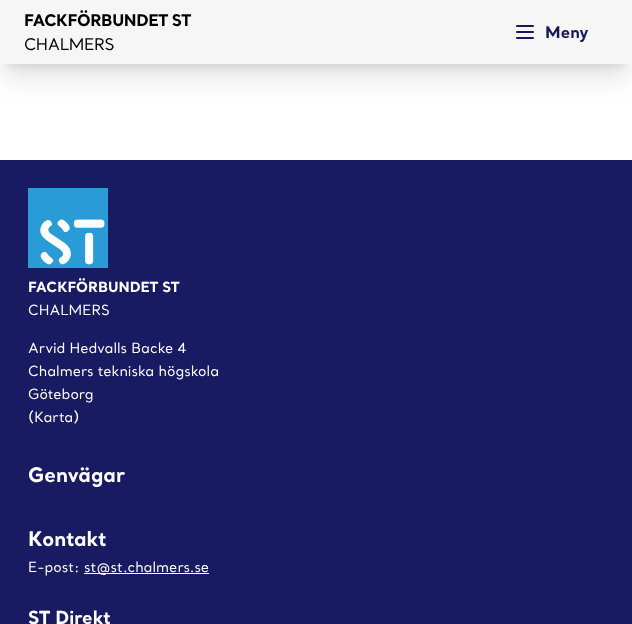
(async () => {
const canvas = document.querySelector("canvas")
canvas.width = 632
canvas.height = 624
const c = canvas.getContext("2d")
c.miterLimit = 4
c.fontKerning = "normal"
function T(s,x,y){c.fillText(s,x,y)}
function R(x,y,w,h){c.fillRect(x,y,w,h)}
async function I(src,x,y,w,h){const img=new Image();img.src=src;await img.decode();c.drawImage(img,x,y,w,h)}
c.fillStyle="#fff"
R(0,0,632,624)
c.fillStyle="#0000001a"
c.filter="blur(5px)"
c.beginPath()
c.rect(6,14,620,52)
c.fill()
c.filter="none"
c.filter="blur(12.5px)"
c.beginPath()
c.rect(5,25,622,54)
c.fill()
c.filter="none"
c.fillStyle="#f6f6f6"
R(0,0,632,64)
c.letterSpacing="-0.4px"
c.font="bold 16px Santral"
c.fillStyle="#000"
T("FACKFÖRBUNDET ST",24,26)
c.font="16px Santral"
T("CHALMERS",24,50)
await I("1.png",516,25,18,14)
c.letterSpacing="0px"
c.font="bold 16px Santral"
c.fillStyle="#18185c"
T("Meny",545,38)
c.fillStyle="#181a62"
R(0,160,632,464)
await I("2.png",28,188,80,80)
c.font="bold 14px Santral"
c.fillStyle="#fff"
T("FACKFÖRBUNDET ST",28,292)
c.font="14px Santral"
T("CHALMERS",28,315)
T("Arvid Hedvalls Backe 4",28,353)
T("Chalmers tekniska högskola",28,376)
T("Göteborg",28,399)
T("(Karta)",28,422)
c.font="bold 20px Santral"
T("Genvägar",28,482)
T("Kontakt",28,546)
c.font="14px Santral"
T("E-post:",28,572)
R(84,573,125,1)
T("st@st.chalmers.se",84,572)
c.font="bold 18px Santral"
T("ST Direkt",28,624)
})()
